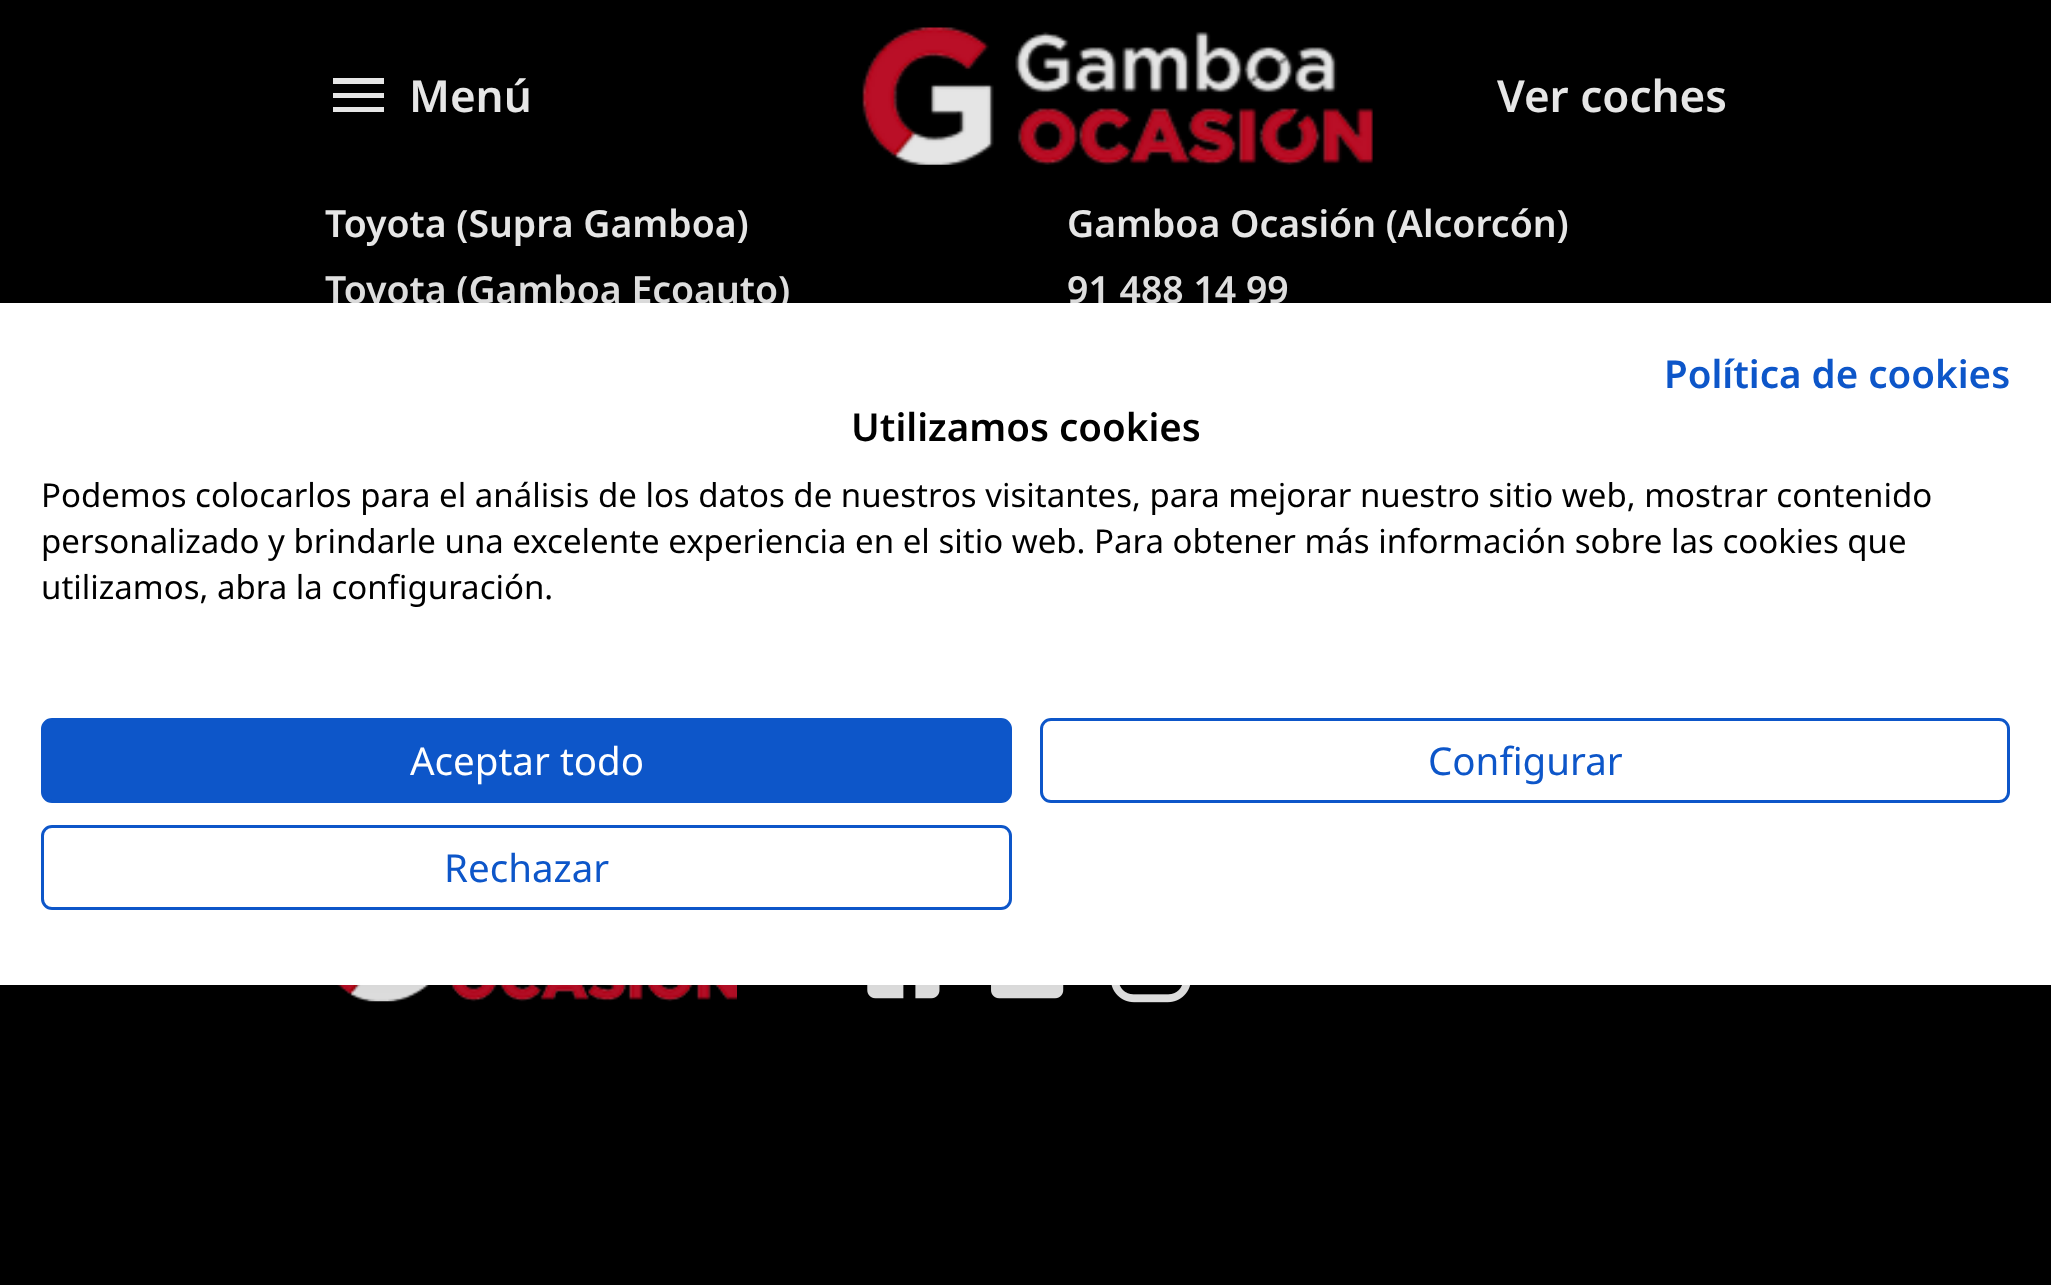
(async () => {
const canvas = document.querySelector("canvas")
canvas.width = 2051
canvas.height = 1285
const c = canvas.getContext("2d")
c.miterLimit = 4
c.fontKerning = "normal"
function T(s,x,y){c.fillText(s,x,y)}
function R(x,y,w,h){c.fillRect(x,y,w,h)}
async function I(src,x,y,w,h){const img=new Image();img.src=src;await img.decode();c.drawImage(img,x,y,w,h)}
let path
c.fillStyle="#000"
R(0,0,2051,1285)
c.fillStyle="#e6e6e6"
path = new Path2D("M333 78h51v6h-51zm0 15h51v5h-51zm0 14h51v5h-51z")
c.fill(path)
c.font="600 44px Noto Sans"
T("Menú",409,112)
await I("1.png",862,27,511,138)
T("Ver coches",1497,112)
c.font="600 37.4px Noto Sans"
T("Toyota (Supra Gamboa)",325,237)
T("Toyota (Gamboa Ecoauto)",325,303)
T("Gamboa Ocasión (Alcorcón)",1067,237)
T("91 488 14 99",1067,303)
await I("2.png",337,985,400,17)
await I("3.png",867,985,73,14)
await I("4.png",991,985,73,14)
await I("5.png",1111,985,80,18)
c.fillStyle="#0000001a"
c.filter="blur(33px)"
c.beginPath()
c.rect(0,303,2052,682)
c.fill()
c.filter="none"
c.fillStyle="#fff"
R(0,303,2051,682)
c.font="600 38.5px Noto Sans"
c.fillStyle="#0d56c9"
T("Política de cookies",1664,388)
c.fillStyle="#000"
T("Utilizamos cookies",851,441)
c.font="33px Noto Sans"
T("Podemos colocarlos para el análisis de los datos de nuestros visitantes, para mejorar nuestro sitio web, mostrar contenido",41,507)
T("personalizado y brindarle una excelente experiencia en el sitio web. Para obtener más información sobre las cookies que",41,553)
T("utilizamos, abra la configuración.",41,599)
c.fillStyle="#0d56c9"
c.beginPath()
c.roundRect(42.5,719.5,968,82,9.5)
c.fill()
c.strokeStyle="#0d56c9"
c.lineWidth=3
c.stroke()
c.font="38.5px Noto Sans"
c.fillStyle="#fff"
T("Aceptar todo",410,775)
c.beginPath()
c.roundRect(1041.5,719.5,967,82,9.5)
c.stroke()
c.fillStyle="#0d56c9"
T("Configurar",1428,775)
c.beginPath()
c.roundRect(42.5,826.5,968,82,9.5)
c.stroke()
T("Rechazar",444,882)
})()
